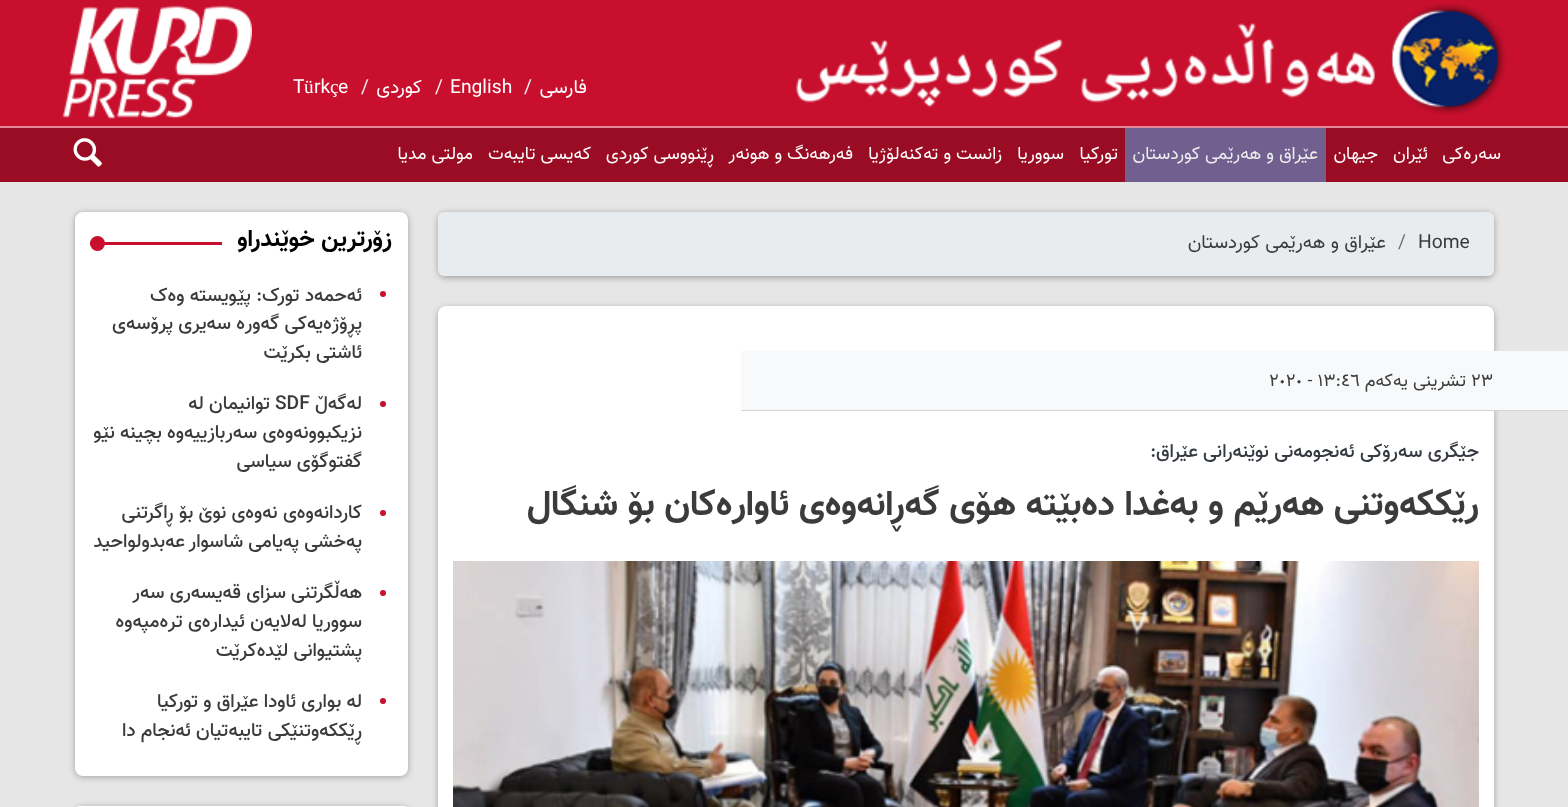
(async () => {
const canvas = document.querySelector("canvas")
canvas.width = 1568
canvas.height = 807
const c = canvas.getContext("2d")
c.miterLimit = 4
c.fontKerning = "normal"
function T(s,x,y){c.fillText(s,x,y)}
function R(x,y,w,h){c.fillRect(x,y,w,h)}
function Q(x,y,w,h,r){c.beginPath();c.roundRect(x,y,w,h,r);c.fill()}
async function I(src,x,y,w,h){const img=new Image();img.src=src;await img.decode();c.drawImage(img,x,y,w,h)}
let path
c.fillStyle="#e6e6e6"
R(0,0,1568,807)
c.fillStyle="#c8102e"
R(0,0,1568,126)
await I("1.png",796,3,710,112)
c.direction="rtl"
c.font="19.25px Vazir"
c.fillStyle="#fff"
T("فارسی",587,93)
c.direction="ltr"
c.fillStyle="#eee"
T("/",524,93)
c.fillStyle="#fff"
T("English",450,93)
c.fillStyle="#eee"
T("/",435,93)
c.direction="rtl"
c.fillStyle="#fff"
T("کوردی",422,93)
c.direction="ltr"
c.fillStyle="#eee"
T("/",361,93)
c.fillStyle="#fff"
T("e",338,93)
c.font="19.25px Liberation Serif"
T("ç",330,93)
c.font="19.25px Vazir"
T("rk",314,93)
c.font="19.25px Liberation Serif"
T("ü",304,93)
c.font="19.25px Vazir"
T("T",293,93)
await I("2.png",62,5,190,114)
c.fillStyle="#990c23"
R(0,128,1568,54)
c.fillStyle="#e48897"
R(0,126,1568,2)
c.direction="rtl"
c.font="18px Vazir"
c.fillStyle="#fff"
T("سەرەکی",1501,159)
T("ئێران",1428,159)
T("جیهان",1378,159)
c.fillStyle="#705f8f"
R(1125,128,201,54)
c.fillStyle="#eee"
T("عێراق و هەرێمی کوردستان",1318,159)
c.fillStyle="#fff"
T("تورکیا",1118,159)
T("سووریا",1064,159)
T("زانست و تەکنەلۆژیا",1002,159)
T("فەرهەنگ و هونەر",853,159)
T("ڕێنووسی کوردی",714,159)
T("کەیسی تایبەت",591,159)
T("مولتی مدیا",473,159)
await I("3.png",73,138,29,29)
c.fillStyle="#0000004d"
c.filter="blur(3px)"
c.beginPath()
c.roundRect(438,213,1056,65,8)
c.fill()
c.filter="none"
c.fillStyle="#e9ecef"
Q(438,212,1056,64,6)
c.direction="ltr"
c.font="19.25px Vazir"
c.fillStyle="#3b3b3b"
T("Home",1418,248)
c.fillStyle="#6c757d"
T("/",1398,248)
c.direction="rtl"
c.fillStyle="#3b3b3b"
T("عێراق و هەرێمی کوردستان",1386,248)
c.fillStyle="#0000004d"
c.filter="blur(3px)"
c.beginPath()
c.roundRect(438,308,1056,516,8)
c.fill()
c.filter="none"
c.fillStyle="#fff"
Q(438,306,1056,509,8)
c.fillStyle="#f8f9fa"
R(741,351,827,59)
c.direction="ltr"
c.font="18px Vazir"
c.fillStyle="#3b3b3b"
T("٢٣",1471,386)
c.direction="rtl"
T("تشرینی یەکەم",1466,386)
c.direction="ltr"
T("١٣:٤٦ - ٢٠٢٠",1269,386)
c.fillStyle="#ced4da"
R(741,410,827,1)
c.direction="rtl"
c.font="500 19.25px Vazir"
c.fillStyle="#343a40"
T("جێگری سەرۆکی ئەنجومەنی نوێنەرانی عێراق:",1479,457)
c.font="bold 36px Vazir"
c.fillStyle="#3b3b3b"
T("رێککەوتنی هەرێم و بەغدا دەبێتە هۆی گەڕانەوەی ئاوارەکان بۆ شنگال",1479,515)
await I("4.png",453,561,1026,246)
c.fillStyle="#0000004d"
c.filter="blur(3px)"
c.beginPath()
c.roundRect(75,213,333,564,8)
c.fill()
c.filter="none"
c.fillStyle="#fff"
Q(75,212,333,564,8)
c.font="bold 24px Vazir"
c.fillStyle="#000"
T("زۆرترین خوێندراو",392,246)
c.fillStyle="#c8102e"
R(90,242,132,3)
c.beginPath()
c.arc(97.5,243.5,7.5,0,7)
c.fill()
c.beginPath()
c.arc(383,294,3,0,7)
c.fill()
c.font="500 19.25px Vazir"
c.fillStyle="#3b3b3b"
T("ئەحمەد تورک: پێویستە وەک",362,301)
T("پڕۆژەیەکی گەورە سەیری پرۆسەی",362,329)
T("ئاشتی بکرێت",362,358)
c.fillStyle="#c8102e"
c.beginPath()
c.arc(383,404,3,0,7)
c.fill()
c.fillStyle="#3b3b3b"
T("لەگەڵ",362,409)
c.direction="ltr"
T("SDF",275,409)
c.direction="rtl"
T("توانیمان لە",270,409)
T("نزیکبوونەوەی سەربازییەوە بچینە نێو",362,438)
T("گفتوگۆی سیاسی",362,467)
c.fillStyle="#c8102e"
c.beginPath()
c.arc(383,513,3,0,7)
c.fill()
c.fillStyle="#3b3b3b"
T("کاردانەوەی نەوەی نوێ بۆ ڕاگرتنی",362,518)
T("پەخشی پەیامی شاسوار عەبدولواحید",362,547)
c.fillStyle="#c8102e"
c.beginPath()
c.arc(383,593,3,0,7)
c.fill()
c.fillStyle="#3b3b3b"
T("هەڵگرتنی سزای قەیسەری سەر",362,598)
T("سووریا لەلایەن ئیدارەی ترەمپەوە",362,627)
T("پشتیوانی لێدەکرێت",362,656)
c.fillStyle="#c8102e"
c.beginPath()
c.arc(383,701,3,0,7)
c.fill()
c.fillStyle="#3b3b3b"
T("لە بواری ئاودا عێراق و تورکیا",362,707)
T("ڕێککەوتنێکی تایبەتیان ئەنجام دا",362,736)
c.save()
path = new Path2D("M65 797h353v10h-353zm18 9h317c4.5 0 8 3.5 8 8v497c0 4.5-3.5 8-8 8h-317c-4.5 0-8-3.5-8-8v-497c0-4.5 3.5-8 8-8z")
c.clip(path,"evenodd")
c.fillStyle="#0000004d"
c.filter="blur(3px)"
c.beginPath()
c.roundRect(75,807,333,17,8)
c.fill()
c.filter="none"
c.restore()
c.fillStyle="#fff"
Q(75,806,333,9,8)
})()
